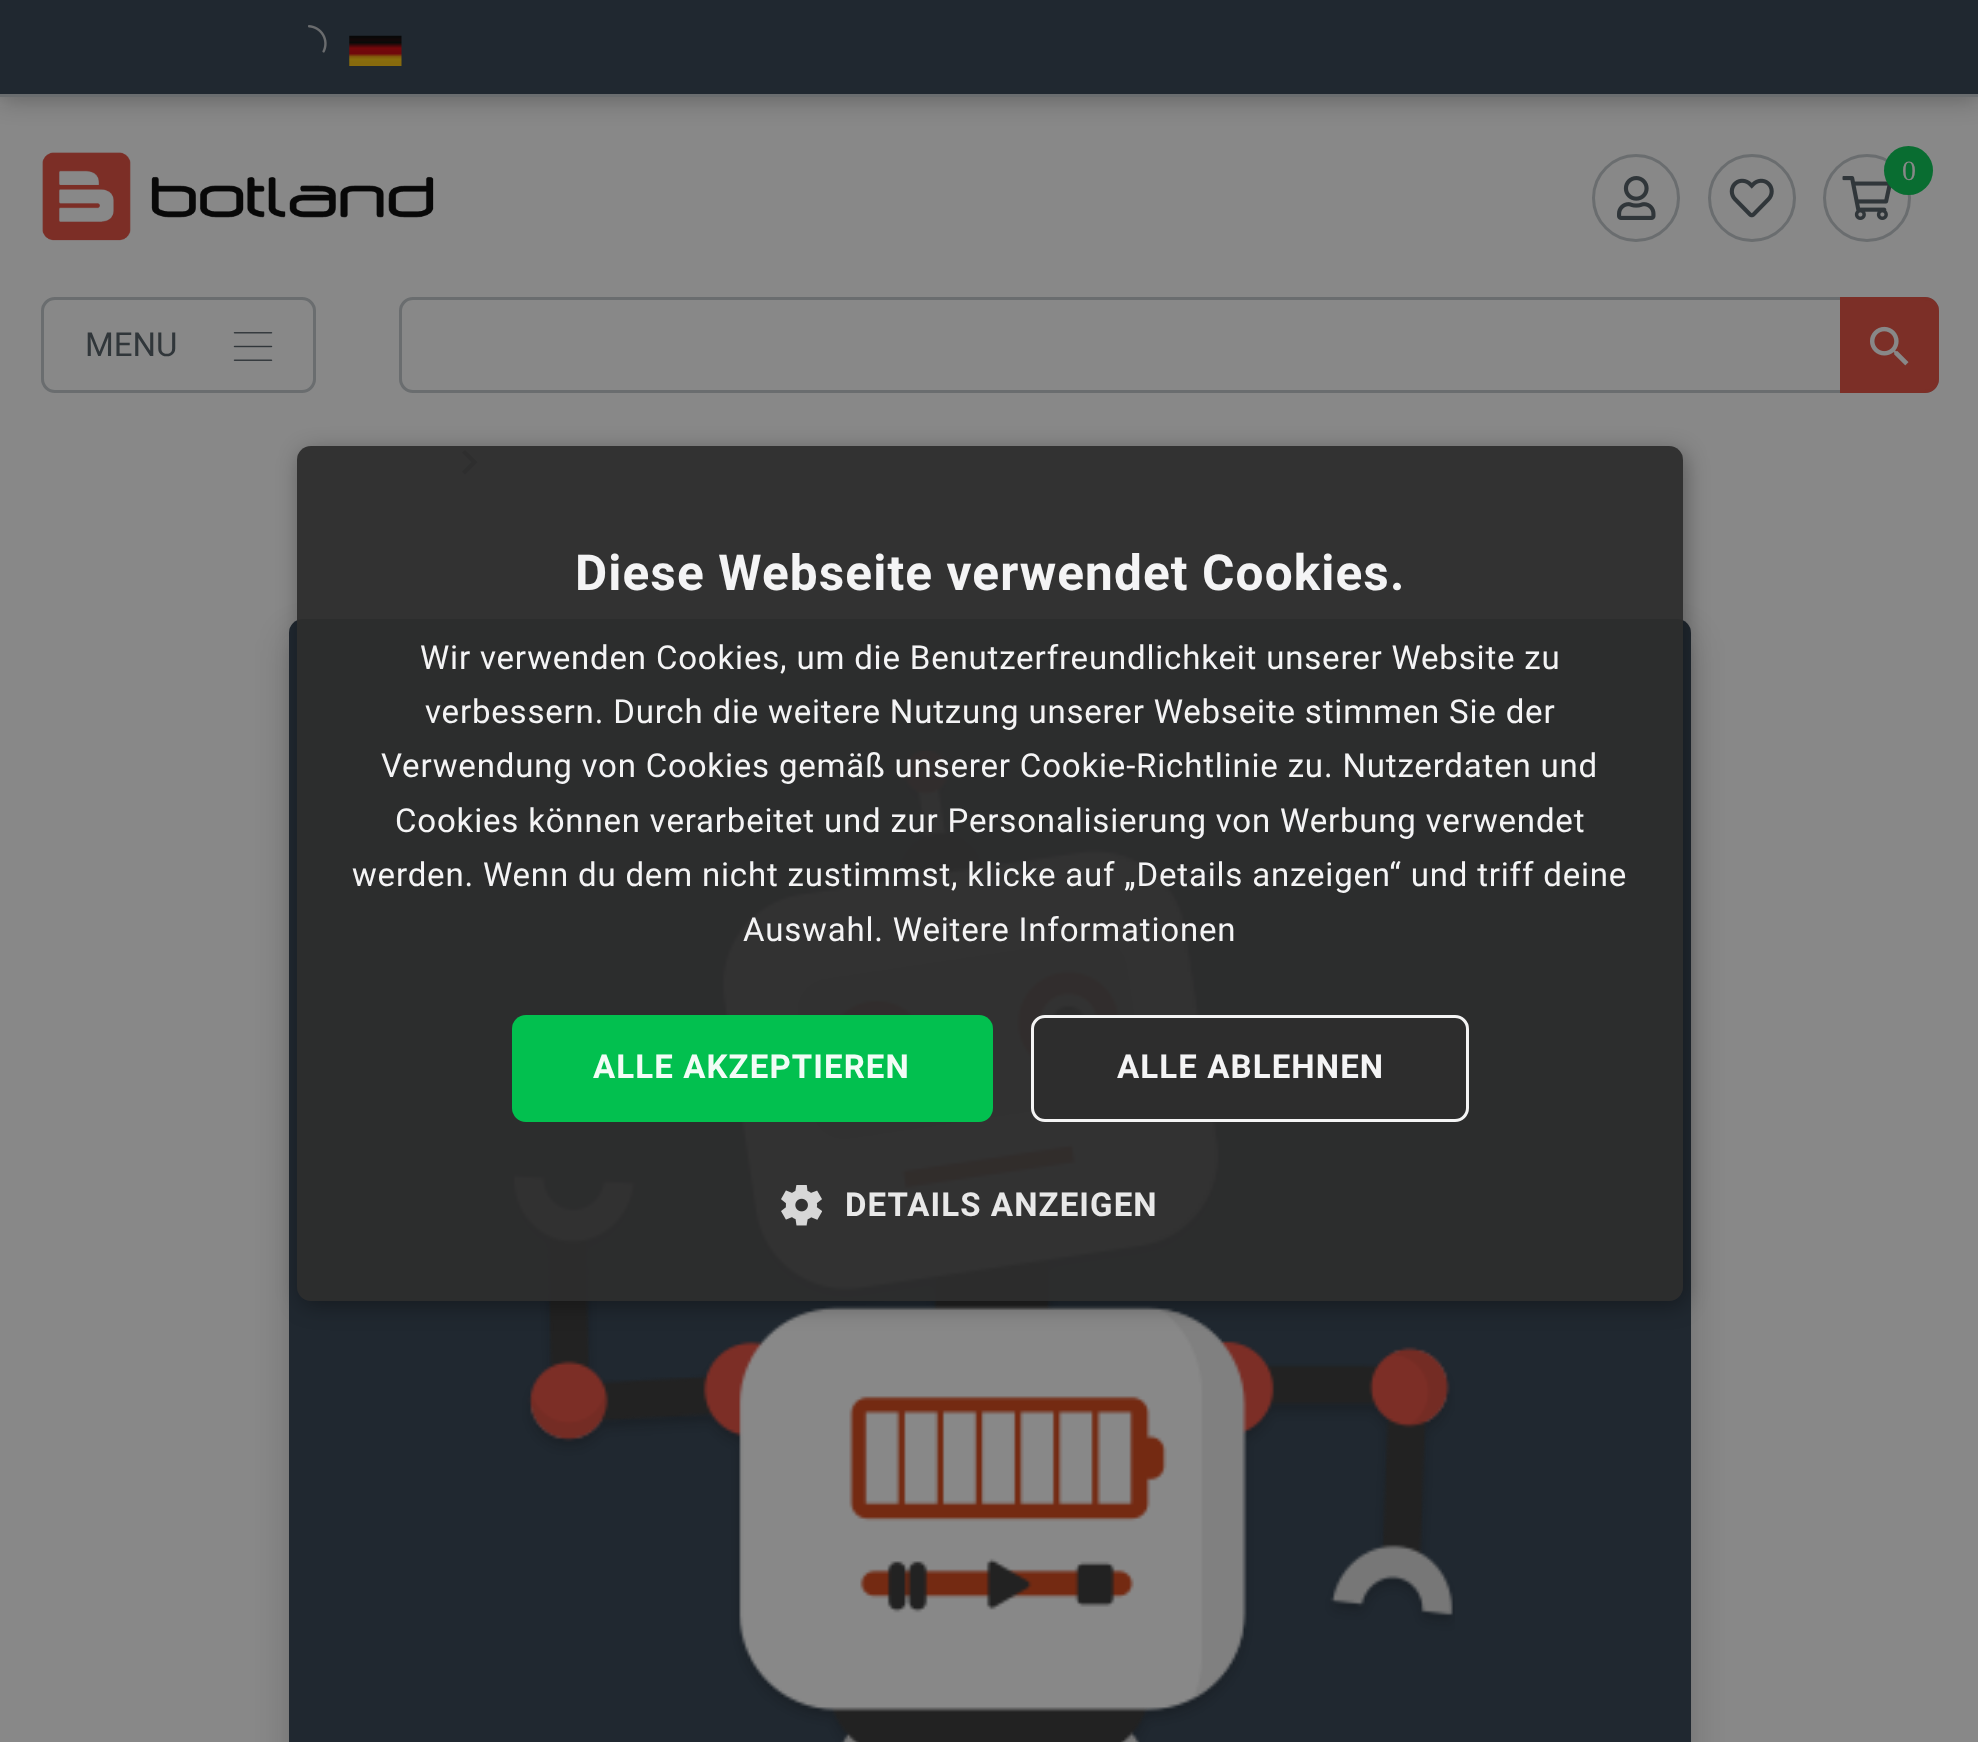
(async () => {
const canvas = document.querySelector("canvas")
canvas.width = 1978
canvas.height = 1742
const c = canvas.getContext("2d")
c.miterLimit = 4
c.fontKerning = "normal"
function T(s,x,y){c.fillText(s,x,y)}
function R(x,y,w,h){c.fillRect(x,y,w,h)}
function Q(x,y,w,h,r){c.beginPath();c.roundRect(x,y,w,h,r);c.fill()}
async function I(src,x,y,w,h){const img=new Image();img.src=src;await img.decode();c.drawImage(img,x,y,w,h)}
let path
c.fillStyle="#888"
R(0,0,1978,1742)
c.fillStyle="#0909094d"
c.filter="blur(12.5px)"
c.beginPath()
c.rect(0,3,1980,96)
c.fill()
c.filter="none"
c.fillStyle="#202830"
R(0,0,1978,94)
c.fillStyle="#6a6d6f"
R(0,94,1978,3)
await I("1.png",308,25,19,28)
await I("2.png",349,35,53,31)
await I("3.png",42,152,392,89)
c.beginPath()
c.arc(1636,198,42.5,0,7)
c.strokeStyle="#6a6d6f"
c.lineWidth=3
c.stroke()
await I("4.png",1617,176,39,44)
c.beginPath()
c.arc(1752,198,42.5,0,7)
c.stroke()
await I("5.png",1729,178,45,40)
c.beginPath()
c.arc(1867,198,42.5,0,7)
c.stroke()
await I("6.png",1842,176,50,44)
c.fillStyle="#096d31"
c.beginPath()
c.arc(1908.5,170.5,24.5,0,7)
c.fill()
c.font="28px Liberation Serif"
c.fillStyle="#888"
T("0",1902,180)
c.beginPath()
c.roundRect(42.5,298.5,272,93,12.5)
c.stroke()
c.font="33px Roboto"
c.fillStyle="#30363a"
T("MENU",85,356)
await I("7.png",233,332,40,29)
c.beginPath()
c.roundRect(400.5,298.5,1537,93,12.5)
c.stroke()
c.fillStyle="#7c2f27"
c.beginPath()
c.roundRect(1841.5,298.5,96,93,[0,12.5,12.5,0])
c.fill()
c.strokeStyle="#7c2f27"
c.stroke()
await I("8.png",1870,326,39,40)
c.fillStyle="#3f4347"
path = new Path2D("M462 452.5l9.5 9.5l-9.5 9.5l3 3l12.5-12.5l-12.5-12z")
c.fill(path)
c.fillStyle="#09090933"
c.filter="blur(16.5px)"
c.beginPath()
c.roundRect(289,635,1402,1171,14)
c.fill()
c.filter="none"
c.fillStyle="#202830"
Q(289,619,1402,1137,14)
await I("9.png",511,750,944,992)
c.save()
path = new Path2D("M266 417h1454v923h-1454zm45 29h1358c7.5 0 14 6.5 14 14v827c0 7.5-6.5 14-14 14h-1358c-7.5 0-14-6.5-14-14v-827c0-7.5 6.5-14 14-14z")
c.clip(path,"evenodd")
c.fillStyle="#00000054"
c.filter="blur(11px)"
c.beginPath()
c.roundRect(300,451,1386,855,14)
c.fill()
c.filter="none"
c.restore()
c.fillStyle="#2d2d2df2"
Q(297,446,1386,855,14)
c.letterSpacing="1.1px"
c.font="bold 49.5px Roboto"
c.fillStyle="#f4f4f5"
T("Diese Webseite verwendet Cookies.",575,590)
c.letterSpacing="0.82px"
c.font="33px Roboto"
T("Wir verwenden Cookies, um die Benutzerfreundlichkeit unserer Website zu",420,669)
T("verbessern. Durch die weitere Nutzung unserer Webseite stimmen Sie der",425,723)
T("Verwendung von Cookies gemäß unserer Cookie-Richtlinie zu. Nutzerdaten und",381,777)
T("Cookies können verarbeitet und zur Personalisierung von Werbung verwendet",395,832)
T("werden. Wenn du dem nicht zustimmst, klicke auf „Details anzeigen“ und triff deine",352,886)
T("Auswahl. Weitere Informationen",743,941)
c.fillStyle="#00c851f2"
Q(512,1015,481,107,14)
c.letterSpacing="1.1px"
c.font="bold 33px Roboto"
c.fillStyle="#f2fcf6"
T("ALLE AKZEPTIEREN",593,1078)
c.fillStyle="#2d2d2df2"
Q(1031,1015,438,107,14)
c.beginPath()
c.roundRect(1032.5,1016.5,435,104,12.5)
c.strokeStyle="#fffffff2"
c.stroke()
c.fillStyle="#f4f4f5"
T("ALLE ABLEHNEN",1117,1078)
await I("10.png",781,1185,41,41)
c.fillStyle="#e8e8e8"
T("DETAILS ANZEIGEN",845,1216)
})()
